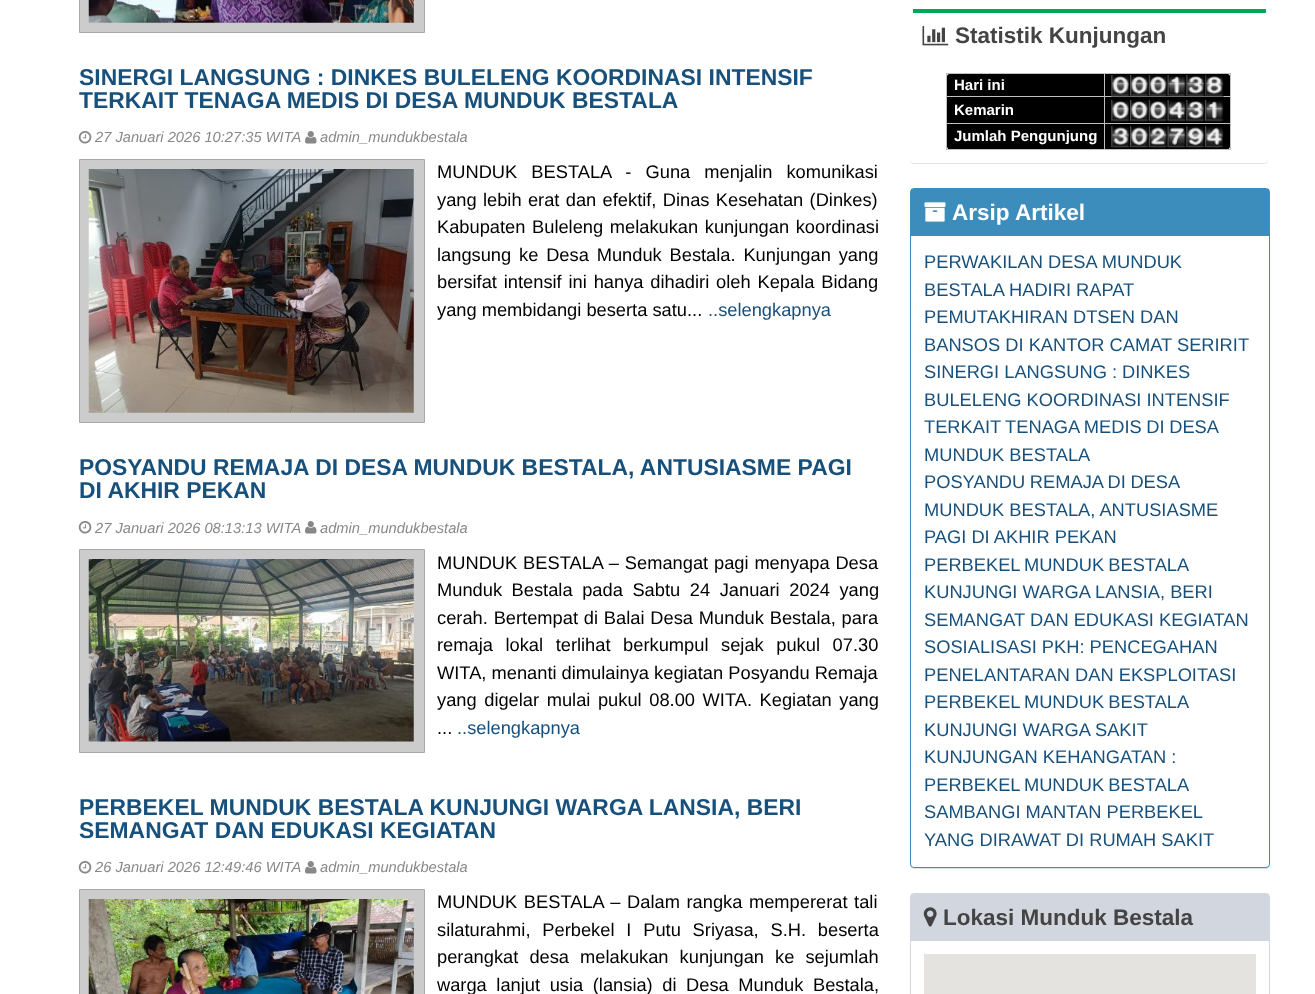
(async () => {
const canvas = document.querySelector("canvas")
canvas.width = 1315
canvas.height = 994
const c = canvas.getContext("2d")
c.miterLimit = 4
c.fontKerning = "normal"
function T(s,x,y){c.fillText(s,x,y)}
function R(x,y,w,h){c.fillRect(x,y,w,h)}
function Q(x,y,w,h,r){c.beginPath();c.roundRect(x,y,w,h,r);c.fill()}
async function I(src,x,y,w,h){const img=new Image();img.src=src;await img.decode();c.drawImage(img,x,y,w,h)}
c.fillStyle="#fff"
R(0,0,1315,994)
c.fillStyle="#ccc"
c.beginPath()
c.rect(79.5,-.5,345,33)
c.fill()
c.strokeStyle="#aaa"
c.stroke()
await I("1.png",88,0,326,23)
c.font="bold 22.9px Liberation Sans"
c.fillStyle="#18507c"
T("SINERGI LANGSUNG : DINKES BULELENG KOORDINASI INTENSIF",79,85)
T("TERKAIT TENAGA MEDIS DI DESA MUNDUK BESTALA",79,108)
await I("2.png",78,131,14,13)
c.font="italic 14.7px Liberation Sans"
c.fillStyle="#888"
T("27 Januari 2026 10:27:35 WITA",95,142)
await I("3.png",305,131,12,13)
T("admin_mundukbestala",320,142)
c.fillStyle="#ccc"
c.beginPath()
c.rect(79.5,159.5,345,263)
c.fill()
c.stroke()
await I("4.png",88,169,326,244)
c.wordSpacing="9px"
c.font="18.3px Liberation Sans"
c.fillStyle="#000"
T("MUNDUK BESTALA - Guna menjalin komunikasi",437,178)
c.wordSpacing="1.25px"
T("yang lebih erat dan efektif, Dinas Kesehatan (Dinkes)",437,206)
c.wordSpacing="1.5px"
T("Kabupaten Buleleng melakukan kunjungan koordinasi",437,233)
c.wordSpacing="2.75px"
T("langsung ke Desa Munduk Bestala. Kunjungan yang",437,261)
c.wordSpacing="1.75px"
T("bersifat intensif ini hanya dihadiri oleh Kepala Bidang",437,288)
c.wordSpacing="0px"
T("yang membidangi beserta satu...",437,316)
c.fillStyle="#18507c"
T("..selengkapnya",708,316)
c.font="bold 22.9px Liberation Sans"
T("POSYANDU REMAJA DI DESA MUNDUK BESTALA, ANTUSIASME PAGI",79,475)
T("DI AKHIR PEKAN",79,498)
await I("2.png",78,521,14,13)
c.font="italic 14.7px Liberation Sans"
c.fillStyle="#888"
T("27 Januari 2026 08:13:13 WITA",95,533)
await I("3.png",305,521,12,13)
T("admin_mundukbestala",320,533)
c.fillStyle="#ccc"
c.beginPath()
c.rect(79.5,549.5,345,203)
c.fill()
c.stroke()
await I("5.png",88,559,326,183)
c.wordSpacing="0.75px"
c.font="18.3px Liberation Sans"
c.fillStyle="#000"
T("MUNDUK BESTALA – Semangat pagi menyapa Desa",437,569)
c.wordSpacing="4.5px"
T("Munduk Bestala pada Sabtu 24 Januari 2024 yang",437,596)
c.wordSpacing="0.75px"
T("cerah. Bertempat di Balai Desa Munduk Bestala, para",437,624)
c.wordSpacing="7.5px"
T("remaja lokal terlihat berkumpul sejak pukul 07.30",437,651)
c.wordSpacing="0px"
T("WITA, menanti dimulainya kegiatan Posyandu Remaja",437,679)
c.wordSpacing="2.5px"
T("yang digelar mulai pukul 08.00 WITA. Kegiatan yang",437,706)
c.wordSpacing="0px"
T("...",437,734)
c.fillStyle="#18507c"
T("..selengkapnya",457,734)
c.font="bold 22.9px Liberation Sans"
T("PERBEKEL MUNDUK BESTALA KUNJUNGI WARGA LANSIA, BERI",79,815)
T("SEMANGAT DAN EDUKASI KEGIATAN",79,838)
await I("2.png",78,861,14,13)
c.font="italic 14.7px Liberation Sans"
c.fillStyle="#888"
T("26 Januari 2026 12:49:46 WITA",95,872)
await I("3.png",305,861,12,13)
T("admin_mundukbestala",320,872)
c.fillStyle="#ccc"
c.beginPath()
c.rect(79.5,889.5,345,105)
c.fill()
c.stroke()
await I("6.png",88,899,326,95)
c.wordSpacing="1.5px"
c.font="18.3px Liberation Sans"
c.fillStyle="#000"
T("MUNDUK BESTALA – Dalam rangka mempererat tali",437,908)
c.wordSpacing="6.75px"
T("silaturahmi, Perbekel I Putu Sriyasa, S.H. beserta",437,936)
c.wordSpacing="6px"
T("perangkat desa melakukan kunjungan ke sejumlah",437,963)
c.wordSpacing="4.5px"
T("warga lanjut usia (lansia) di Desa Munduk Bestala,",437,991)
c.fillStyle="#0000001a"
c.filter="blur(0.5px)"
c.beginPath()
c.roundRect(910,10,358,154,4)
c.fill()
c.filter="none"
c.fillStyle="#fff"
Q(910,9,358,154,4)
c.fillStyle="#00a65a"
R(913,9,353,4)
await I("7.png",922,26,27,20)
c.wordSpacing="0px"
c.font="bold 22.5px Liberation Sans"
c.fillStyle="#444"
T("Statistik Kunjungan",955,43)
c.fillStyle="#000"
Q(946,73,285,77,6)
c.fillStyle="#c0c0c0"
R(946,73,285,1)
R(1230,73,1,77)
R(946,149,285,1)
R(946,73,1,77)
R(1104,123,1,27)
R(1104,123,127,1)
R(1104,96,1,28)
R(1104,96,127,1)
R(1104,73,1,25)
R(946,96,159,1)
c.font="bold 15px Liberation Sans"
c.fillStyle="#fff"
T("Hari ini",954,90)
await I("8.png",1111,75,19,22)
await I("9.png",1130,75,19,22)
await I("10.png",1148,75,20,22)
await I("11.png",1167,75,20,22)
await I("12.png",1186,75,19,22)
await I("13.png",1205,75,19,22)
c.fillStyle="#c0c0c0"
R(946,123,159,1)
c.fillStyle="#fff"
T("Kemarin",954,115)
await I("14.png",1111,100,19,22)
await I("15.png",1130,100,19,22)
await I("16.png",1148,100,20,22)
await I("17.png",1167,100,19,22)
await I("18.png",1186,100,19,22)
await I("19.png",1205,100,19,22)
T("Jumlah Pengunjung",954,141)
await I("20.png",1111,126,19,22)
await I("21.png",1130,126,19,22)
await I("22.png",1148,126,20,22)
await I("23.png",1167,126,19,22)
await I("24.png",1186,126,19,22)
await I("25.png",1205,126,19,22)
c.fillStyle="#0000001a"
c.filter="blur(0.5px)"
c.beginPath()
c.roundRect(910,189,360,680,4)
c.fill()
c.filter="none"
c.fillStyle="#fff"
c.beginPath()
c.roundRect(910.5,188.5,359,679,3.5)
c.fill()
c.strokeStyle="#3c8dbc"
c.stroke()
c.fillStyle="#3c8dbc"
R(911,189,358,47)
await I("26.png",924,202,22,20)
c.font="bold 22.5px Liberation Sans"
c.fillStyle="#fff"
T("Arsip Artikel",952,220)
c.font="18.3px Liberation Sans"
c.fillStyle="#18507c"
T("PERWAKILAN DESA MUNDUK",924,268)
T("BESTALA HADIRI RAPAT",924,296)
T("PEMUTAKHIRAN DTSEN DAN",924,323)
T("BANSOS DI KANTOR CAMAT SERIRIT",924,351)
T("SINERGI LANGSUNG : DINKES",924,378)
T("BULELENG KOORDINASI INTENSIF",924,406)
c.wordSpacing="-0.5px"
T("TERKAIT TENAGA MEDIS DI DESA",924,433)
c.wordSpacing="0px"
T("MUNDUK BESTALA",924,461)
c.wordSpacing="-0.5px"
T("POSYANDU REMAJA DI DESA",924,488)
c.wordSpacing="0px"
T("MUNDUK BESTALA, ANTUSIASME",924,516)
T("PAGI DI AKHIR PEKAN",924,543)
c.wordSpacing="-1px"
T("PERBEKEL MUNDUK BESTALA",924,571)
c.wordSpacing="0px"
T("KUNJUNGI WARGA LANSIA, BERI",924,598)
T("SEMANGAT DAN EDUKASI KEGIATAN",924,626)
T("SOSIALISASI PKH: PENCEGAHAN",924,653)
T("PENELANTARAN DAN EKSPLOITASI",924,681)
c.wordSpacing="-1px"
T("PERBEKEL MUNDUK BESTALA",924,708)
c.wordSpacing="0px"
T("KUNJUNGI WARGA SAKIT",924,736)
T("KUNJUNGAN KEHANGATAN :",924,763)
c.wordSpacing="-1px"
T("PERBEKEL MUNDUK BESTALA",924,791)
c.wordSpacing="0px"
T("SAMBANGI MANTAN PERBEKEL",924,818)
T("YANG DIRAWAT DI RUMAH SAKIT",924,846)
c.beginPath()
c.roundRect(910.5,893.5,359,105,3.5)
c.strokeStyle="#d2d6de"
c.stroke()
c.fillStyle="#d2d6de"
R(911,894,358,47)
await I("27.png",923,907,14,20)
c.font="bold 22.5px Liberation Sans"
c.fillStyle="#444"
T("Lokasi Munduk Bestala",943,925)
c.fillStyle="#e5e3df"
R(924,954,332,40)
})()
